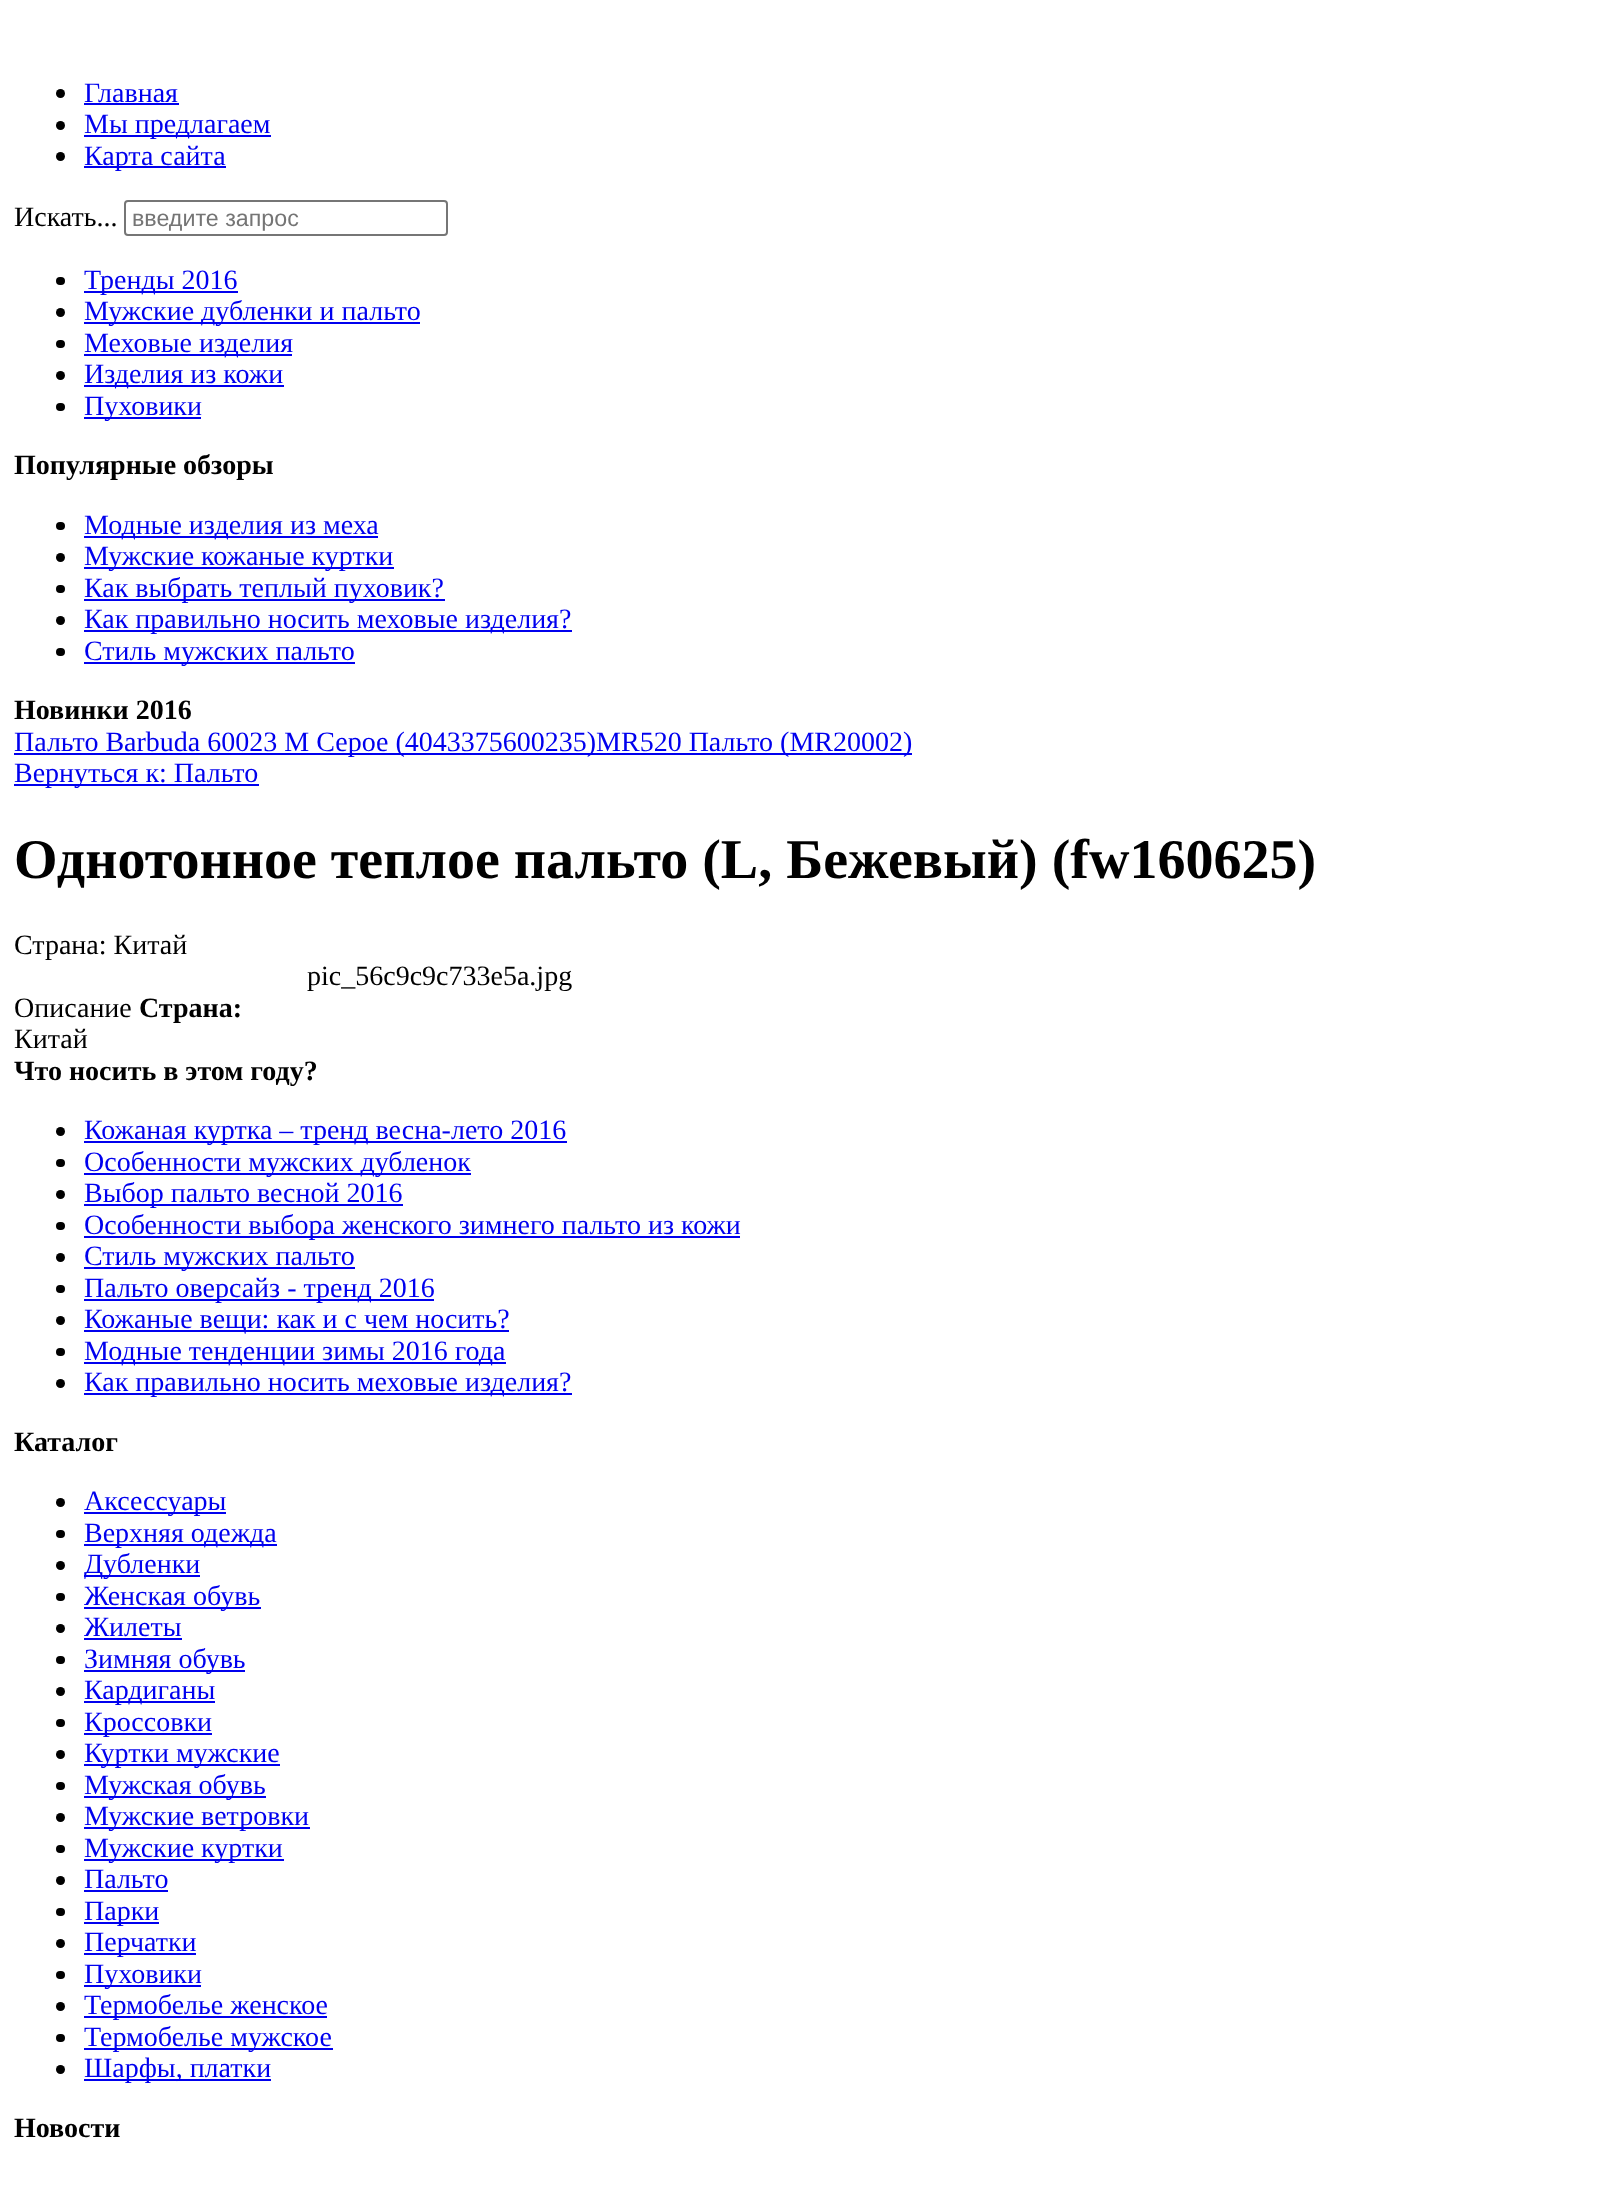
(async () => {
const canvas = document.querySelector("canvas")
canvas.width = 1615
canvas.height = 2189
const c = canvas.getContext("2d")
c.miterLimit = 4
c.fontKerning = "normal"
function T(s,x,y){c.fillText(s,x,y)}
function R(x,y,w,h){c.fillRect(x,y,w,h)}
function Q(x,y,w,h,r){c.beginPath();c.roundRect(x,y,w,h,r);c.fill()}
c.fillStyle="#fff"
R(0,0,1615,2189)
c.fillStyle="#000"
c.beginPath()
c.arc(60.5,93.5,4.5,0,7)
c.fill()
c.font="28px Liberation Serif"
c.fillStyle="#00e"
T("Главная",84,102)
R(84,103,95,2)
c.fillStyle="#000"
c.beginPath()
c.arc(60.5,125.5,4.5,0,7)
c.fill()
c.fillStyle="#00e"
R(84,135,187,2)
T("Мы предлагаем",84,133)
c.fillStyle="#000"
c.beginPath()
c.arc(60.5,156.5,4.5,0,7)
c.fill()
c.fillStyle="#00e"
R(84,166,142,2)
T("Карта сайта",84,165)
c.fillStyle="#000"
T("Искать...",14,226)
c.beginPath()
c.roundRect(125,201,322,34,3)
c.strokeStyle="#767676"
c.lineWidth=2
c.stroke()
c.font="23.25px Liberation Sans"
c.fillStyle="#757575"
T("введите запрос",132,226)
c.fillStyle="#000"
Q(56,277,9,8,4)
c.fillStyle="#00e"
R(84,291,154,2)
c.font="28px Liberation Serif"
T("Тренды 2016",84,289)
c.fillStyle="#000"
c.beginPath()
c.arc(60.5,312.5,4.5,0,7)
c.fill()
c.fillStyle="#00e"
R(84,322,336,2)
T("Мужские дубленки и пальто",84,320)
c.fillStyle="#000"
Q(56,340,9,8,4)
c.fillStyle="#00e"
R(84,354,208,2)
T("Меховые изделия",84,352)
c.fillStyle="#000"
c.beginPath()
c.arc(60.5,375.5,4.5,0,7)
c.fill()
c.fillStyle="#00e"
R(84,385,200,2)
T("Изделия из кожи",84,383)
c.fillStyle="#000"
Q(56,403,9,8,4)
c.fillStyle="#00e"
R(84,417,117,2)
T("Пуховики",84,415)
c.font="bold 28px Liberation Serif"
c.fillStyle="#000"
T("Популярные обзоры",14,474)
Q(56,522,9,8,4)
c.fillStyle="#00e"
R(84,536,294,2)
c.font="28px Liberation Serif"
T("Модные изделия из меха",84,534)
c.fillStyle="#000"
c.beginPath()
c.arc(60.5,557.5,4.5,0,7)
c.fill()
c.fillStyle="#00e"
R(84,567,310,2)
T("Мужские кожаные куртки",84,565)
c.fillStyle="#000"
Q(56,585,9,8,4)
c.fillStyle="#00e"
R(84,599,361,2)
T("Как выбрать теплый пуховик?",84,597)
c.fillStyle="#000"
c.beginPath()
c.arc(60.5,620.5,4.5,0,7)
c.fill()
c.fillStyle="#00e"
R(84,630,488,2)
T("Как правильно носить меховые изделия?",84,628)
c.fillStyle="#000"
Q(56,648,9,8,4)
c.fillStyle="#00e"
R(84,662,271,2)
T("Стиль мужских пальто",84,660)
c.font="bold 28px Liberation Serif"
c.fillStyle="#000"
T("Новинки 2016",14,719)
c.fillStyle="#00e"
R(14,753,898,2)
c.font="28px Liberation Serif"
T("Пальто Barbuda 60023 M Серое (4043375600235)MR520 Пальто (MR20002)",14,751)
R(14,784,245,2)
T("Вернуться к: Пальто",14,782)
c.font="bold 56px Liberation Serif"
c.fillStyle="#000"
T("Однотонное теплое пальто (L, Бежевый) (fw160625)",14,878)
c.font="28px Liberation Serif"
T("Страна: Китай",14,954)
T("pic_56c9c9c733e5a.jpg",307,985)
T("Описание",14,1017)
c.font="bold 28px Liberation Serif"
T("Страна:",139,1017)
c.font="28px Liberation Serif"
T("Китай",14,1048)
c.font="bold 28px Liberation Serif"
T("Что носить в этом году?",14,1080)
c.beginPath()
c.arc(60.5,1131.5,4.5,0,7)
c.fill()
c.fillStyle="#00e"
R(84,1141,483,2)
c.font="28px Liberation Serif"
T("Кожаная куртка – тренд весна-лето 2016",84,1139)
c.fillStyle="#000"
Q(56,1159,9,8,4)
c.fillStyle="#00e"
R(84,1173,387,2)
T("Особенности мужских дубленок",84,1171)
c.fillStyle="#000"
c.beginPath()
c.arc(60.5,1194.5,4.5,0,7)
c.fill()
c.fillStyle="#00e"
R(84,1204,319,2)
T("Выбор пальто весной 2016",84,1202)
c.fillStyle="#000"
Q(56,1222,9,8,4)
c.fillStyle="#00e"
R(84,1236,656,2)
T("Особенности выбора женского зимнего пальто из кожи",84,1234)
c.fillStyle="#000"
c.beginPath()
c.arc(60.5,1257.5,4.5,0,7)
c.fill()
c.fillStyle="#00e"
R(84,1267,271,2)
T("Стиль мужских пальто",84,1265)
c.fillStyle="#000"
Q(56,1285,9,8,4)
c.fillStyle="#00e"
R(84,1299,350,2)
T("Пальто оверсайз - тренд 2016",84,1297)
c.fillStyle="#000"
c.beginPath()
c.arc(60.5,1320.5,4.5,0,7)
c.fill()
c.fillStyle="#00e"
R(84,1330,425,2)
T("Кожаные вещи: как и с чем носить?",84,1328)
c.fillStyle="#000"
Q(56,1348,9,8,4)
c.fillStyle="#00e"
R(84,1362,422,2)
T("Модные тенденции зимы 2016 года",84,1360)
c.fillStyle="#000"
c.beginPath()
c.arc(60.5,1383.5,4.5,0,7)
c.fill()
c.fillStyle="#00e"
R(84,1393,488,2)
T("Как правильно носить меховые изделия?",84,1391)
c.font="bold 28px Liberation Serif"
c.fillStyle="#000"
T("Каталог",14,1451)
c.beginPath()
c.arc(60.5,1502.5,4.5,0,7)
c.fill()
c.fillStyle="#00e"
R(84,1512,142,2)
c.font="28px Liberation Serif"
T("Аксессуары",84,1510)
c.fillStyle="#000"
Q(56,1530,9,8,4)
c.fillStyle="#00e"
R(84,1544,193,2)
T("Верхняя одежда",84,1542)
c.fillStyle="#000"
c.beginPath()
c.arc(60.5,1565.5,4.5,0,7)
c.fill()
c.fillStyle="#00e"
R(84,1575,116,2)
T("Дубленки",84,1573)
c.fillStyle="#000"
Q(56,1593,9,8,4)
c.fillStyle="#00e"
R(84,1607,177,2)
T("Женская обувь",84,1605)
c.fillStyle="#000"
c.beginPath()
c.arc(60.5,1628.5,4.5,0,7)
c.fill()
c.fillStyle="#00e"
T("Жилеты",84,1636)
R(84,1638,98,2)
c.fillStyle="#000"
Q(56,1656,9,8,4)
c.fillStyle="#00e"
R(84,1670,161,2)
T("Зимняя обувь",84,1668)
c.fillStyle="#000"
c.beginPath()
c.arc(60.5,1691.5,4.5,0,7)
c.fill()
c.fillStyle="#00e"
R(84,1701,131,2)
T("Кардиганы",84,1699)
c.fillStyle="#000"
Q(56,1719,9,8,4)
c.fillStyle="#00e"
R(84,1733,128,2)
T("Кроссовки",84,1731)
c.fillStyle="#000"
c.beginPath()
c.arc(60.5,1754.5,4.5,0,7)
c.fill()
c.fillStyle="#00e"
R(84,1764,196,2)
T("Куртки мужские",84,1762)
c.fillStyle="#000"
Q(56,1782,9,8,4)
c.fillStyle="#00e"
R(84,1796,182,2)
T("Мужская обувь",84,1794)
c.fillStyle="#000"
c.beginPath()
c.arc(60.5,1817.5,4.5,0,7)
c.fill()
c.fillStyle="#00e"
R(84,1827,226,2)
T("Мужские ветровки",84,1825)
c.fillStyle="#000"
Q(56,1845,9,8,4)
c.fillStyle="#00e"
R(84,1859,200,2)
T("Мужские куртки",84,1857)
c.fillStyle="#000"
c.beginPath()
c.arc(60.5,1880.5,4.5,0,7)
c.fill()
c.fillStyle="#00e"
T("Пальто",84,1888)
R(84,1890,84,2)
c.fillStyle="#000"
Q(56,1908,9,8,4)
c.fillStyle="#00e"
R(84,1922,75,2)
T("Парки",84,1920)
c.fillStyle="#000"
c.beginPath()
c.arc(60.5,1943.5,4.5,0,7)
c.fill()
c.fillStyle="#00e"
R(84,1953,112,2)
T("Перчатки",84,1951)
c.fillStyle="#000"
Q(56,1971,9,8,4)
c.fillStyle="#00e"
R(84,1985,117,2)
T("Пуховики",84,1983)
c.fillStyle="#000"
c.beginPath()
c.arc(60.5,2006.5,4.5,0,7)
c.fill()
c.fillStyle="#00e"
R(84,2016,243,2)
T("Термобелье женское",84,2014)
c.fillStyle="#000"
Q(56,2034,9,8,4)
c.fillStyle="#00e"
R(84,2048,249,2)
T("Термобелье мужское",84,2046)
c.fillStyle="#000"
c.beginPath()
c.arc(60.5,2069.5,4.5,0,7)
c.fill()
c.fillStyle="#00e"
R(84,2079,187,2)
T("Шарфы, платки",84,2077)
c.font="bold 28px Liberation Serif"
c.fillStyle="#000"
T("Новости",14,2137)
})()
